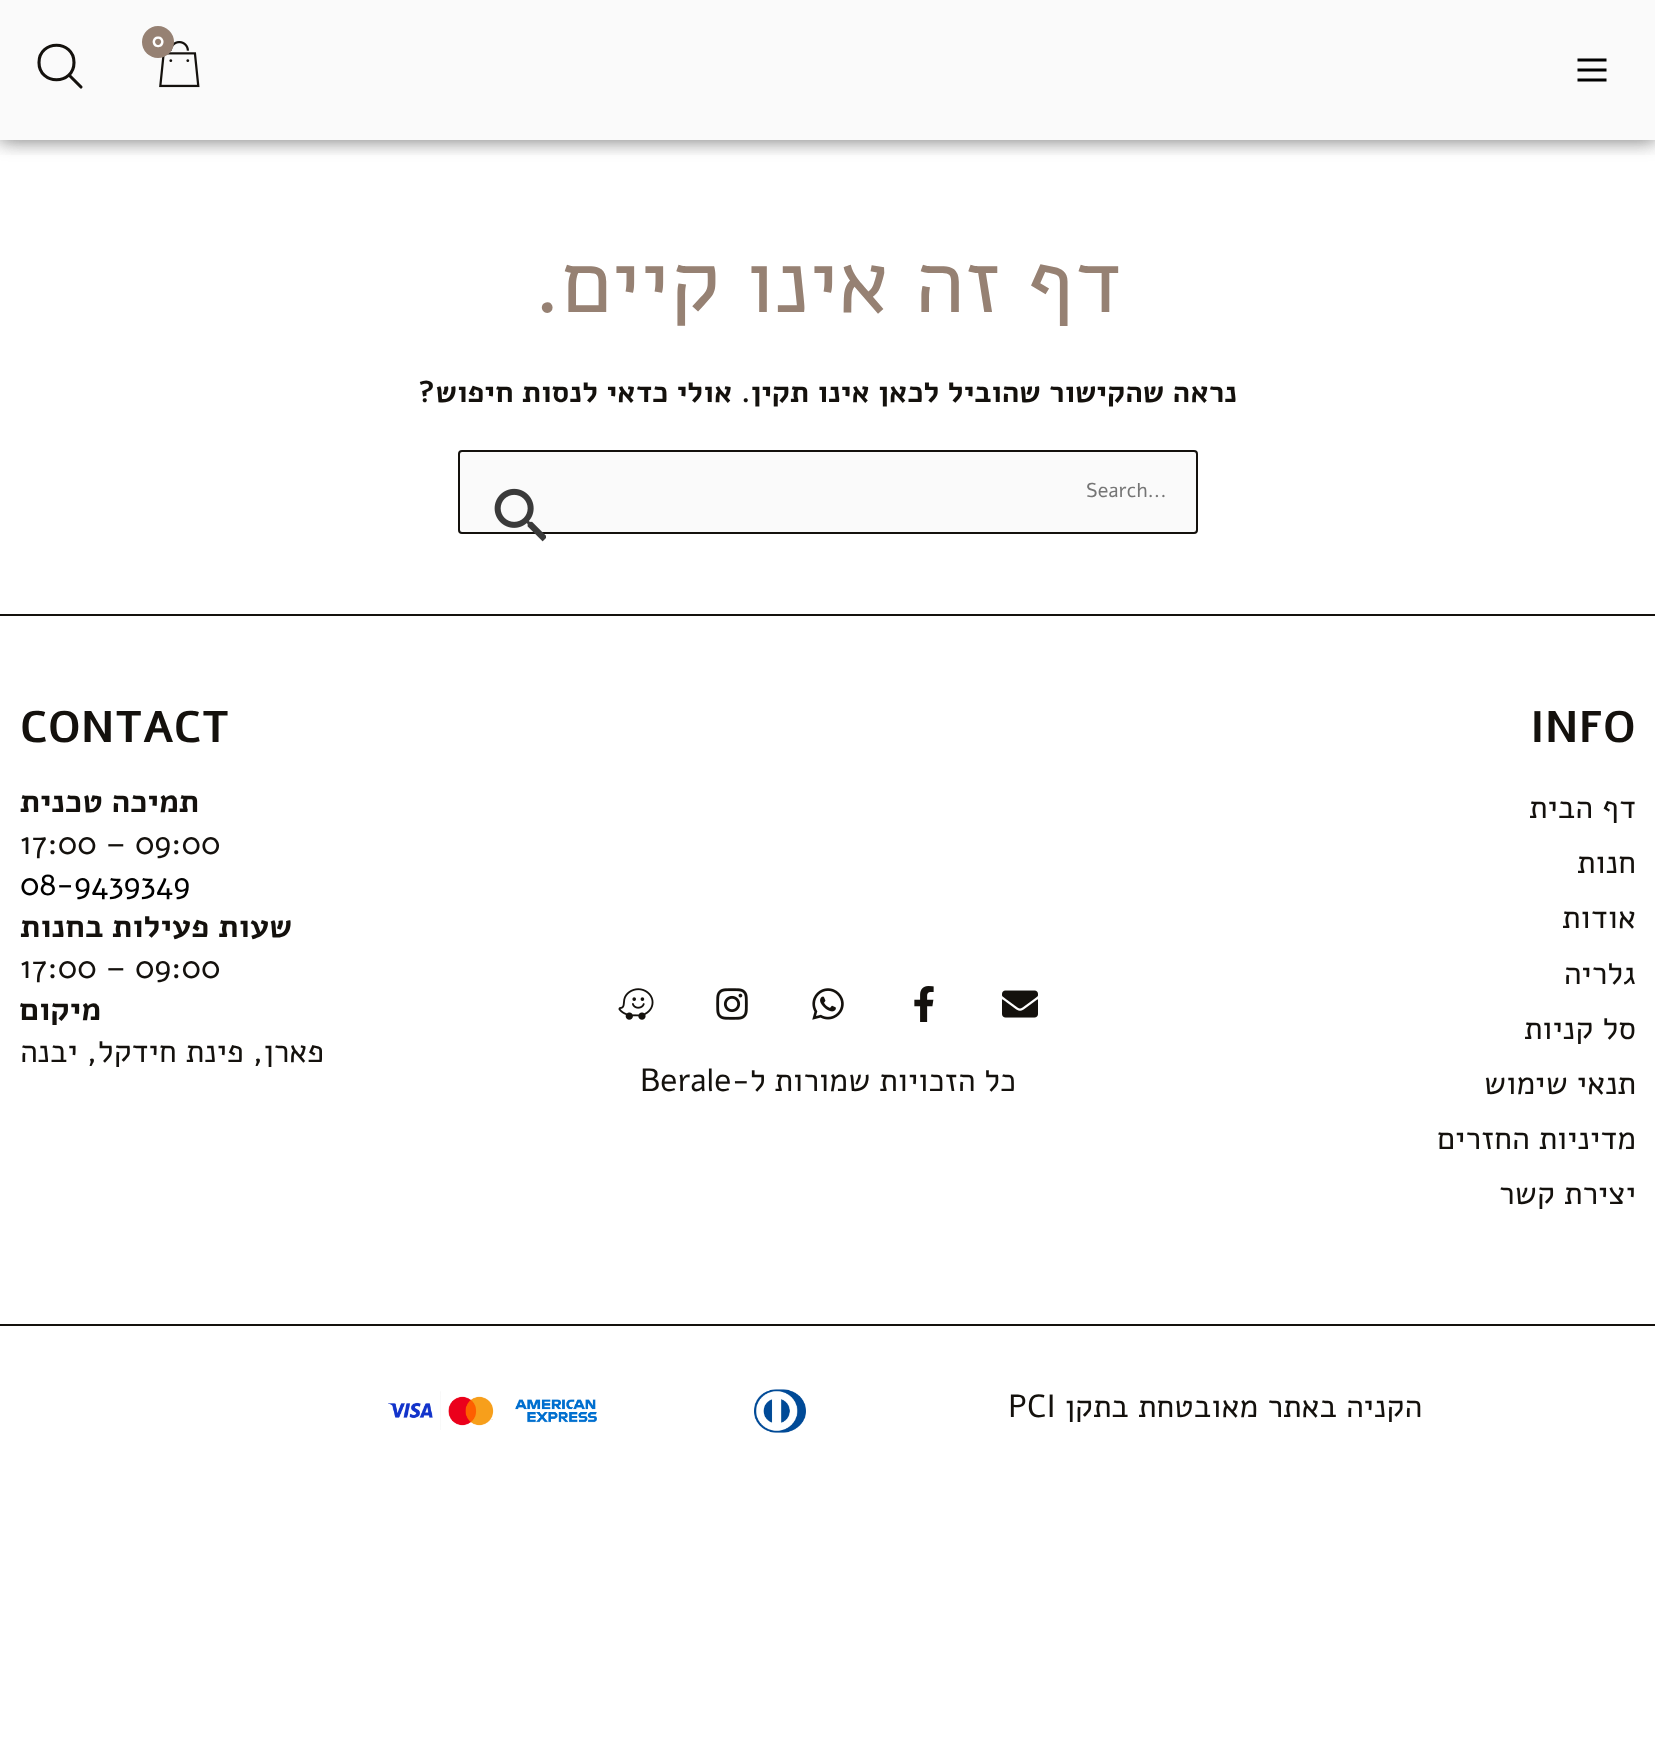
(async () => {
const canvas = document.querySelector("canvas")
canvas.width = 1655
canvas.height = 1754
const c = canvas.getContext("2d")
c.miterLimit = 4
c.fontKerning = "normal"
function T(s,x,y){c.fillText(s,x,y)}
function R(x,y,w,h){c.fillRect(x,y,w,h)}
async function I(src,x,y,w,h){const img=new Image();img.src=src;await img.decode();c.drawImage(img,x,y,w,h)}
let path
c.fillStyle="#fff"
R(0,0,1655,1754)
c.fillStyle="#0000004d"
c.filter="blur(10px)"
c.beginPath()
c.rect(0,0,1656,140)
c.fill()
c.filter="none"
c.fillStyle="#fafafa"
R(0,0,1655,140)
c.save()
c.beginPath()
c.rect(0,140,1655,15)
c.clip()
c.fillStyle="#0000004d"
c.filter="blur(10px)"
c.beginPath()
c.rect(0,0,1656,140)
c.fill()
c.filter="none"
c.restore()
await I("1.png",159,41,41,47)
c.fillStyle="#968173"
c.beginPath()
c.arc(158,42,16,0,7)
c.fill()
c.font="bold 20px Alef"
c.fillStyle="#fff"
T("0",152,47)
path = new Path2D("M69 75l12 12m-7-24.5c0 23-35 23-35 0c0-23 35-23 35 0z")
c.strokeStyle="#14110d"
c.lineWidth=3.1
c.lineCap="round"
c.lineJoin="round"
c.stroke(path)
path = new Path2D("M1577.5 60h29m-29 10h29m-29 10h29")
c.strokeStyle="#000"
c.lineWidth=2.9
c.lineCap="butt"
c.lineJoin="miter"
c.stroke(path)
c.direction="rtl"
c.font="90px Alef"
c.fillStyle="#968173"
T("דף זה אינו קיים.",1122,312)
c.font="bold 30px Alef"
c.fillStyle="#14110d"
T("נראה שהקישור שהוביל לכאן אינו תקין. אולי כדאי לנסות חיפוש?",1237,402)
c.fillStyle="#fafafa"
c.beginPath()
c.roundRect(459,451,738,82,3)
c.fill()
c.strokeStyle="#14110d"
c.lineWidth=2
c.stroke()
c.direction="ltr"
c.font="20px Alef"
c.fillStyle="#757575"
T("Search...",1086,497)
await I("2.png",494,488,52,54)
c.fillStyle="#14110d"
R(0,614,1655,2)
R(0,1324,1655,2)
c.font="bold 44px Alef"
T("INFO",1530,742)
c.direction="rtl"
c.font="32px Alef"
T("דף הבית",1636,818)
T("חנות",1636,873)
T("אודות",1636,928)
T("גלריה",1636,984)
T("סל קניות",1636,1039)
T("תנאי שימוש",1636,1094)
T("מדיניות החזרים",1636,1149)
T("יצירת קשר",1636,1204)
await I("3.png",1002,990,36,28)
await I("4.png",914,986,20,36)
await I("5.png",812,988,32,32)
await I("6.png",716,988,32,32)
await I("7.png",618,988,36,32)
T("כל הזכויות שמורות ל-",1016,1091)
c.direction="ltr"
T("Berale",640,1091)
c.font="bold 44px Alef"
T("CONTACT",20,742)
c.direction="rtl"
c.font="bold 32px Alef"
T("תמיכה טכנית",199,812)
c.direction="ltr"
c.font="32px Alef"
T("17:00 – 09:00",20,854)
c.fillStyle="#000"
T("08-9439349",20,895)
c.direction="rtl"
c.font="bold 32px Alef"
c.fillStyle="#14110d"
T("שעות פעילות בחנות",292,937)
c.direction="ltr"
c.font="32px Alef"
T("17:00 – 09:00",20,978)
c.direction="rtl"
c.font="bold 32px Alef"
T("מיקום",101,1020)
c.font="32px Alef"
T("פארן, פינת חידקל, יבנה",324,1062)
T("הקניה באתר מאובטחת בתקן",1422,1417)
c.direction="ltr"
T("PCI",1008,1417)
await I("8.png",754,1389,52,44)
await I("9.png",515,1399,82,24)
await I("10.png",388,1391,106,39)
})()
